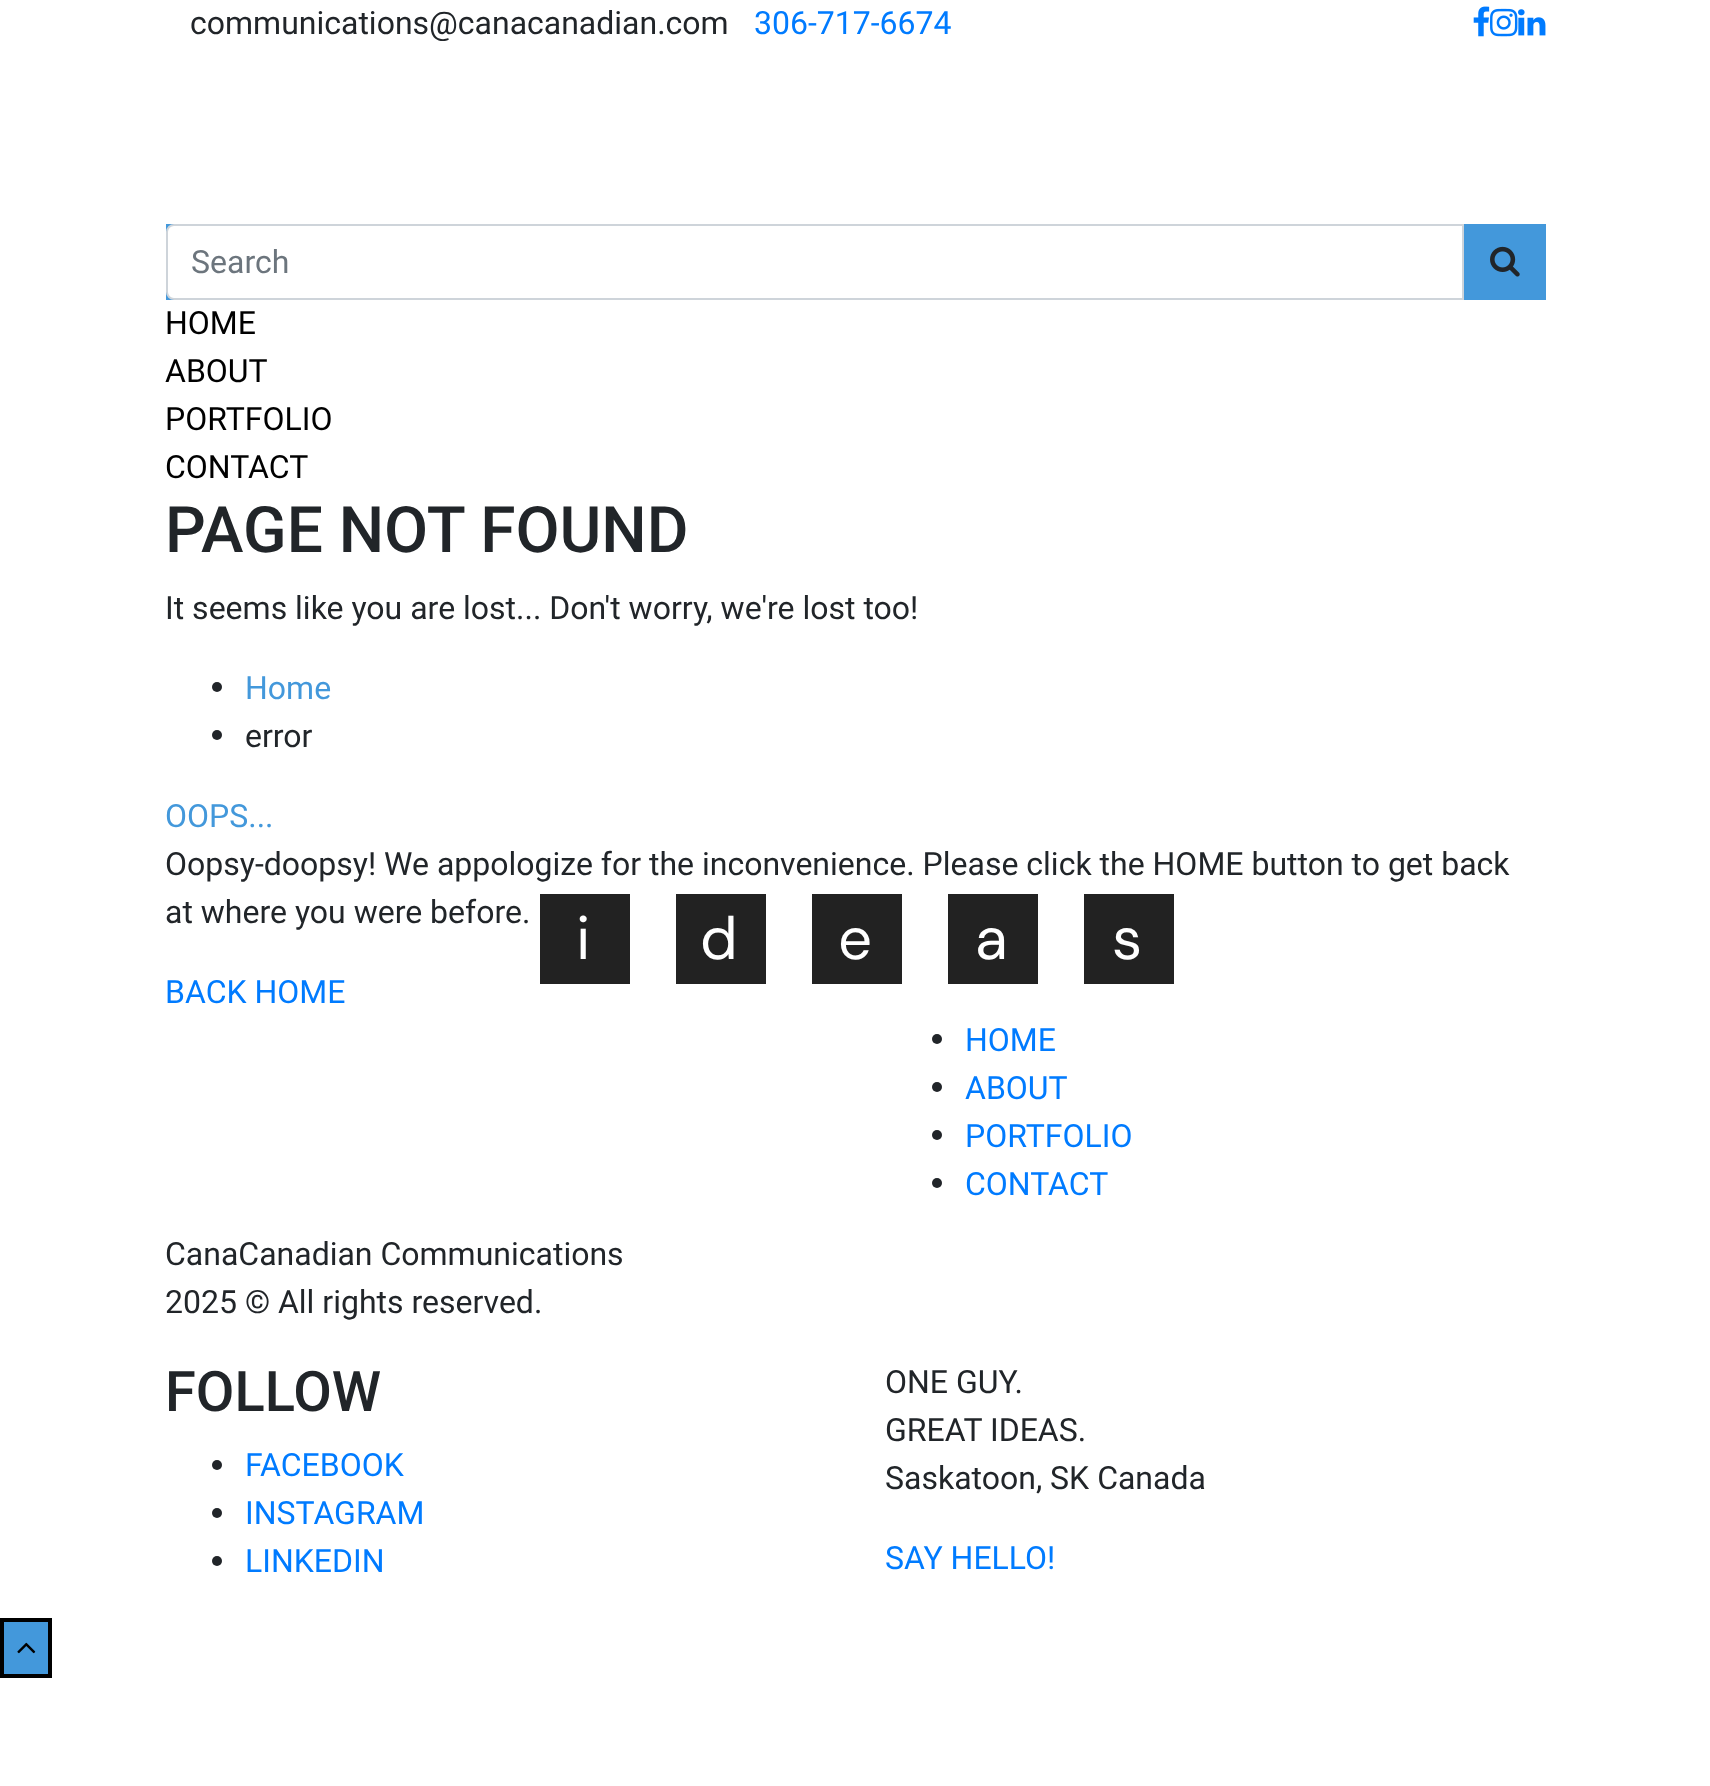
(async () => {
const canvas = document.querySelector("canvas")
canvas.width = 1710
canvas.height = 1786
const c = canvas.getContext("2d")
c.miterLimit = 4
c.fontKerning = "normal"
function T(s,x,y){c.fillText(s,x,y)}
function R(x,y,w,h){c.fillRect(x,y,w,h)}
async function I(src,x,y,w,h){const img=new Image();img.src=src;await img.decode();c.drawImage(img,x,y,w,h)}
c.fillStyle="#fff"
R(0,0,1710,1786)
c.font="32px Roboto"
c.fillStyle="#212529"
T("communications@canacanadian.com",190,34)
c.fillStyle="#007bff"
T("306-717-6674",754,34)
await I("1.png",1473,6,17,31)
await I("2.png",1490,8,28,29)
await I("3.png",1518,9,28,27)
c.fillStyle="#4398db"
R(166,224,1380,76)
c.fillStyle="#fff"
c.beginPath()
c.roundRect(167,225,1296,74,[7,0,0,7])
c.fill()
c.strokeStyle="#ced4da"
c.lineWidth=2
c.stroke()
c.fillStyle="#6c757d"
T("Search",191,273)
await I("4.png",1490,246,30,31)
c.fillStyle="#000"
T("HOME",165,334)
T("ABOUT",165,382)
T("PORTFOLIO",165,430)
T("CONTACT",165,478)
c.font="500 64px Roboto"
c.fillStyle="#212529"
T("PAGE NOT FOUND",165,552)
c.font="32px Roboto"
T("It seems like you are lost... Don't worry, we're lost too!",165,619)
c.beginPath()
c.arc(217,687,5,0,7)
c.fill()
c.fillStyle="#4398db"
T("Home",245,699)
c.fillStyle="#212529"
c.beginPath()
c.arc(217,735,5,0,7)
c.fill()
T("error",245,747)
c.fillStyle="#4398db"
T("OOPS...",165,827)
c.fillStyle="#212529"
T("Oopsy-doopsy! We appologize for the inconvenience. Please click the HOME button to get back",165,875)
T("at where you were before.",165,923)
c.fillStyle="#007bff"
T("BACK HOME",165,1003)
c.fillStyle="#212529"
c.beginPath()
c.arc(937,1039,5,0,7)
c.fill()
c.fillStyle="#007bff"
T("HOME",965,1051)
c.fillStyle="#212529"
c.beginPath()
c.arc(937,1087,5,0,7)
c.fill()
c.fillStyle="#007bff"
T("ABOUT",965,1099)
c.fillStyle="#212529"
c.beginPath()
c.arc(937,1135,5,0,7)
c.fill()
c.fillStyle="#007bff"
T("PORTFOLIO",965,1147)
c.fillStyle="#212529"
c.beginPath()
c.arc(937,1183,5,0,7)
c.fill()
c.fillStyle="#007bff"
T("CONTACT",965,1195)
c.fillStyle="#212529"
T("CanaCanadian Communications",165,1265)
T("2025 © All rights reserved.",165,1313)
c.font="500 56px Roboto"
T("FOLLOW",165,1411)
c.beginPath()
c.arc(217,1465,5,0,7)
c.fill()
c.font="32px Roboto"
c.fillStyle="#007bff"
T("FACEBOOK",245,1476)
c.fillStyle="#212529"
c.beginPath()
c.arc(217,1513,5,0,7)
c.fill()
c.fillStyle="#007bff"
T("INSTAGRAM",245,1524)
c.fillStyle="#212529"
c.beginPath()
c.arc(217,1561,5,0,7)
c.fill()
c.fillStyle="#007bff"
T("LINKEDIN",245,1572)
c.fillStyle="#212529"
T("ONE GUY.",885,1393)
T("GREAT IDEAS.",885,1441)
T("Saskatoon, SK Canada",885,1489)
c.fillStyle="#007bff"
T("SAY HELLO!",885,1569)
c.fillStyle="#4398db"
c.beginPath()
c.rect(2,1620,48,56)
c.fill()
c.strokeStyle="#000"
c.lineWidth=4
c.stroke()
await I("5.png",17,1642,19,12)
c.fillStyle="#222"
R(540,894,90,90)
c.font="60px DM Sans"
c.fillStyle="#fff"
T("i",576,959)
c.fillStyle="#222"
R(676,894,90,90)
c.fillStyle="#fff"
T("d",700,959)
c.fillStyle="#222"
R(812,894,90,90)
c.fillStyle="#fff"
T("e",838,959)
c.fillStyle="#222"
R(948,894,90,90)
c.fillStyle="#fff"
T("a",975,959)
c.fillStyle="#222"
R(1084,894,90,90)
c.fillStyle="#fff"
T("s",1112,959)
})()
